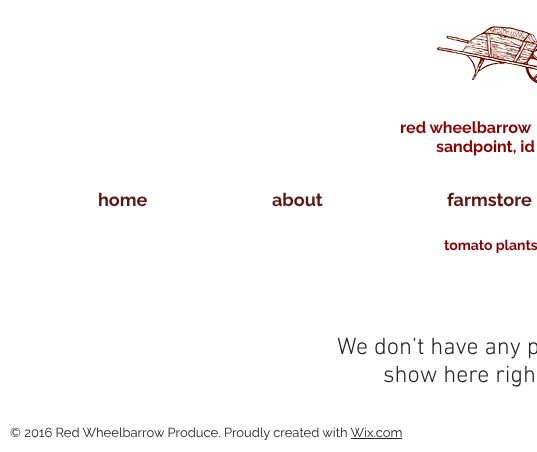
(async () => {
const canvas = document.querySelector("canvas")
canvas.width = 537
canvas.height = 452
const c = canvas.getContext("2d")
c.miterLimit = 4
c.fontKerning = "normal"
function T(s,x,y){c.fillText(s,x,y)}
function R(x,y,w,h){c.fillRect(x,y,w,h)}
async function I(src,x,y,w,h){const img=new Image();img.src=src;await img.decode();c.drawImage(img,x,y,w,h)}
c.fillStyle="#fff"
R(0,0,537,452)
await I("1.png",435,24,102,62)
c.font="bold 16px Raleway"
c.fillStyle="#8b0000"
T("red wheelbarrow",400,133)
T("sandpoint, id",436,152)
c.font="bold 18px Raleway"
c.fillStyle="#5f1612"
T("home",98,206)
T("about",272,206)
T("farmstore",447,206)
c.font="bold 14px 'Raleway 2'"
c.fillStyle="#8b0000"
T("tomato plants",444,250)
c.font="300 24px 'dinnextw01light'"
c.fillStyle="#242424"
T("We don’t have any p",337,354)
T("show here righ",383,382)
c.font="13px Raleway"
T("© 2016 Red Wheelbarrow Produce. Proudly created with Wix.com",10,437)
R(351,438,51,1)
})()
